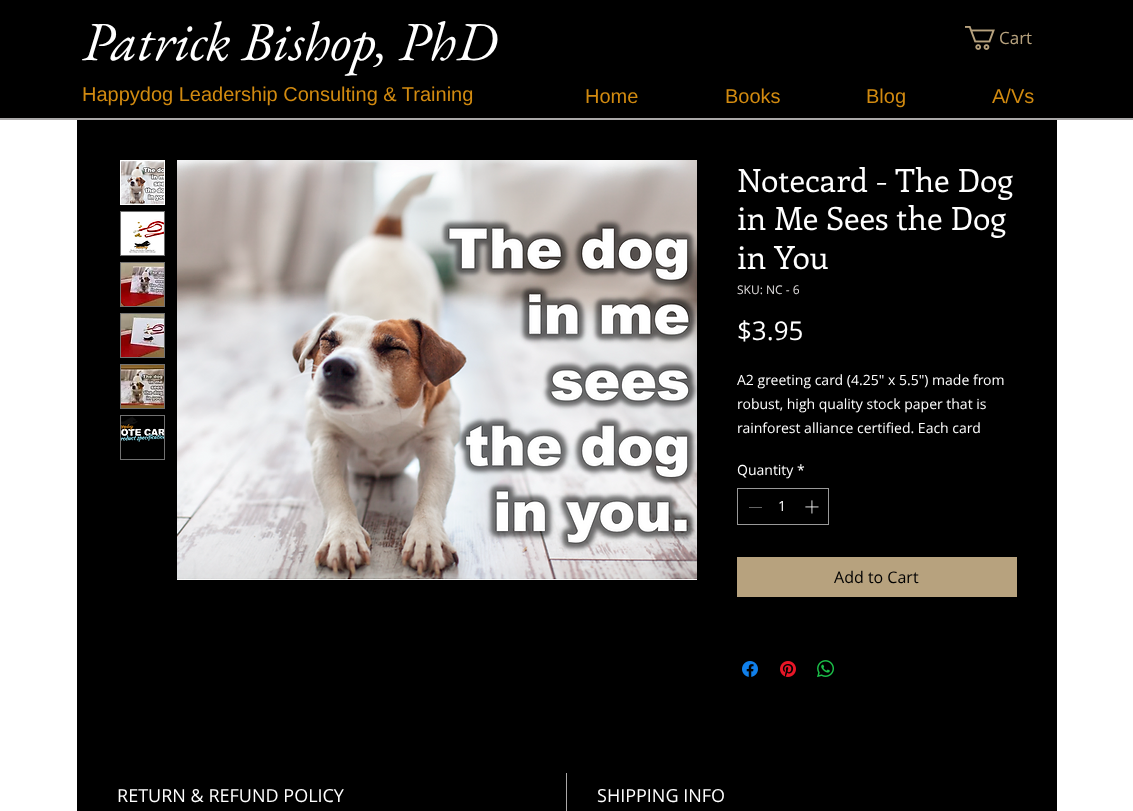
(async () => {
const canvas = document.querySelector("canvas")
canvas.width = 1133
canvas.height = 811
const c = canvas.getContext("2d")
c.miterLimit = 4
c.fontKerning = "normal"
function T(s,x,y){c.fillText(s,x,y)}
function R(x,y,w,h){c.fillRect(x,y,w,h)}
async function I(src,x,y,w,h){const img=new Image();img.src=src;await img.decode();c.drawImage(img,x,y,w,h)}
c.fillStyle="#fff"
R(0,0,1133,811)
c.fillStyle="#000"
R(0,0,1133,118)
c.fillStyle="#aaa8a8"
R(0,118,1133,2)
c.font="italic 55px EB Garamond"
c.fillStyle="#fff"
T("Patrick Bishop, PhD",82,60)
await I("1.png",965,26,30,24)
c.font="17px Open Sans"
c.fillStyle="#b7a27e"
T("Cart",999,44)
c.font="20px Liberation Sans"
c.fillStyle="#d18a10"
T("Happydog Leadership Consulting & Training",82,101)
T("Home",585,103)
T("Books",725,103)
T("Blog",866,103)
T("A/Vs",992,103)
c.fillStyle="#000"
R(77,120,980,691)
c.strokeStyle="#fff"
c.strokeRect(120.5,160.5,44,44)
await I("2.png",121,161,43,43)
c.strokeStyle="#717171"
c.strokeRect(120.5,211.5,44,44)
await I("3.png",121,212,43,43)
c.strokeRect(120.5,262.5,44,44)
await I("4.png",121,263,43,43)
c.strokeRect(120.5,313.5,44,44)
await I("5.png",121,314,43,43)
c.strokeRect(120.5,364.5,44,44)
await I("6.png",121,365,43,43)
c.strokeRect(120.5,415.5,44,44)
await I("7.png",121,416,43,26)
await I("8.png",177,160,520,420)
c.font="32px Enriqueta"
c.fillStyle="#fff"
T("Notecard - The Dog",737,192)
T("in Me Sees the Dog",737,230)
T("in You",737,269)
c.font="12px Open Sans"
c.fillStyle="#e0dddd"
T("SKU: NC - 6",737,294)
c.font="26px Open Sans"
c.fillStyle="#fff"
T("$3.95",737,340)
c.font="14px Open Sans"
T("A2 greeting card (4.25\" x 5.5\") made from",737,385)
T("robust, high quality stock paper that is",737,409)
T("rainforest alliance certified. Each card",737,433)
T("Quantity",737,475)
T("*",797,475)
c.strokeStyle="#999"
c.strokeRect(737.5,488.5,91,36)
c.fillStyle="#646464"
R(749,507,13,1)
c.fillStyle="#fff"
T("1",778,511)
await I("9.png",805,500,14,14)
c.fillStyle="#b7a27e"
R(737,557,280,40)
c.font="16px Open Sans"
c.fillStyle="#000"
T("Add to Cart",834,583)
await I("10.png",742,661,16,16)
await I("11.png",780,661,16,16)
await I("12.png",817,660,17,17)
c.fillStyle="#aaa8a8"
R(566,773,1,38)
c.font="18px Open Sans"
c.fillStyle="#fff"
T("RETURN & REFUND POLICY",117,802)
T("SHIPPING INFO",597,802)
})()
